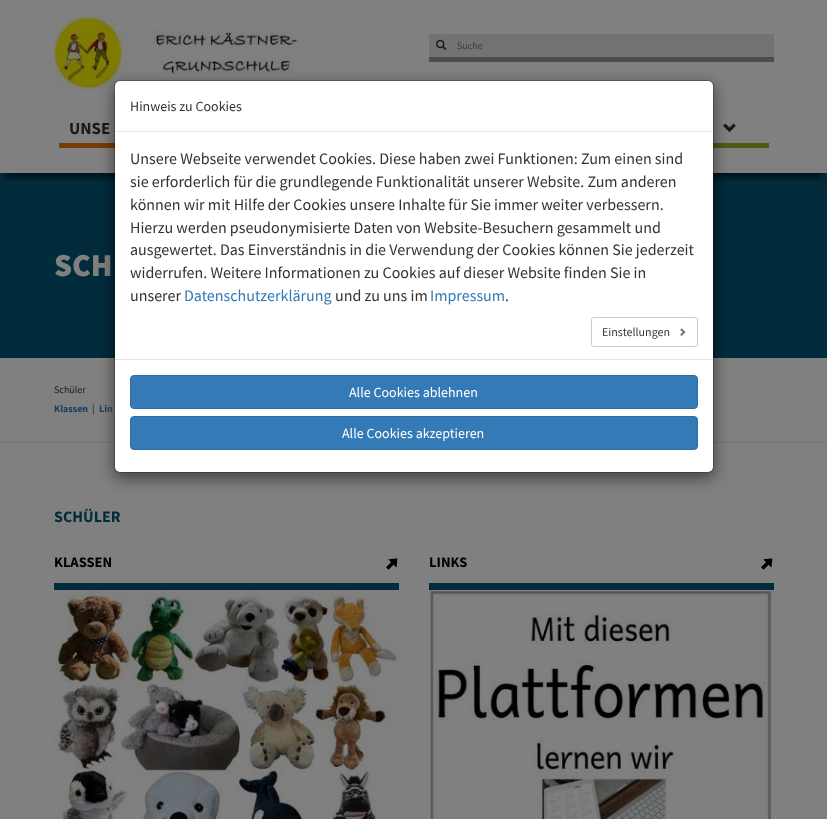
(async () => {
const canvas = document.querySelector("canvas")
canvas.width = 827
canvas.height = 819
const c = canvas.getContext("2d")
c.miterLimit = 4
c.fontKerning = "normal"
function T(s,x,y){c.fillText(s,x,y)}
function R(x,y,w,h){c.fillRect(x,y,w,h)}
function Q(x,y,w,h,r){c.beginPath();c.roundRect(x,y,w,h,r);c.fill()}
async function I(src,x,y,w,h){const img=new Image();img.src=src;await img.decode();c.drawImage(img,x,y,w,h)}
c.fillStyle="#808080"
R(0,0,827,819)
c.fillStyle="#022b3c"
R(0,173,827,185)
c.save()
c.beginPath()
c.rect(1,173,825,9)
c.clip()
c.fillStyle="#00000080"
c.filter="blur(2.5px)"
c.beginPath()
c.rect(5,15,817,163)
c.fill()
c.filter="none"
c.restore()
await I("1.png",54,15,247,75)
c.fillStyle="#737373"
R(429,34,345,23)
c.fillStyle="#4d4d4d"
R(429,57,345,5)
await I("2.png",436,39,11,11)
c.font="10px Source Sans Pro"
c.fillStyle="#3b3b3b"
T("Suche",457,49)
c.fillStyle="#773b06"
R(59,143,56,5)
c.font="bold 17px Source Sans Pro"
c.fillStyle="#191919"
T("UNSE",69,134)
c.fillStyle="#4f5a13"
R(713,143,56,5)
await I("3.png",723,123,13,10)
c.font="900 32px Source Sans Pro"
c.fillStyle="#808080"
T("SCH",54,276)
c.fillStyle="#737373"
R(0,442,827,1)
c.fillStyle="#00000080"
c.filter="blur(7.5px)"
c.beginPath()
c.roundRect(114,85,600,393,6)
c.fill()
c.filter="none"
c.fillStyle="#fff"
Q(115,81,598,391,5)
c.beginPath()
c.roundRect(114.5,80.5,599,392,5.5)
c.strokeStyle="#00000033"
c.stroke()
c.fillStyle="#e5e5e5"
R(115,131,598,1)
c.font="14px Source Sans Pro"
c.fillStyle="#333"
T("Hinweis zu Cookies",130,111)
c.font="16px Source Sans Pro"
T("Unsere Webseite verwendet Cookies. Diese haben zwei Funktionen: Zum einen sind",130,164)
T("sie erforderlich für die grundlegende Funktionalität unserer Website. Zum anderen",130,187)
T("können wir mit Hilfe der Cookies unsere Inhalte für Sie immer weiter verbessern.",130,210)
T("Hierzu werden pseudonymisierte Daten von Website-Besuchern gesammelt und",130,233)
T("ausgewertet. Das Einverständnis in die Verwendung der Cookies können Sie jederzeit",130,255)
T("widerrufen. Weitere Informationen zu Cookies auf dieser Website finden Sie in",130,278)
T("unserer",130,301)
c.fillStyle="#337ab7"
T("Datenschutzerklärung",184,301)
c.fillStyle="#333"
T("und zu uns im",335,301)
c.fillStyle="#337ab7"
T("Impressum",430,301)
c.fillStyle="#333"
T(".",505,301)
c.beginPath()
c.roundRect(591.5,317.5,106,29,2.5)
c.strokeStyle="#ccc"
c.stroke()
c.font="12px Source Sans Pro"
T("Einstellungen",602,336)
await I("4.png",680,328,6,8)
c.fillStyle="#e5e5e5"
R(115,359,598,1)
c.fillStyle="#337ab7"
c.beginPath()
c.roundRect(130.5,375.5,567,33,3.5)
c.fill()
c.strokeStyle="#2e6da4"
c.stroke()
c.font="14px Source Sans Pro"
c.fillStyle="#fff"
T("Alle Cookies ablehnen",349,397)
c.fillStyle="#337ab7"
c.beginPath()
c.roundRect(130.5,416.5,567,33,3.5)
c.fill()
c.stroke()
c.fillStyle="#fff"
T("Alle Cookies akzeptieren",342,438)
c.font="10px Source Sans Pro"
c.fillStyle="#191919"
T("Schüler",54,393)
c.font="bold 10px Source Sans Pro"
c.fillStyle="#1a3d5c"
T("Klassen",54,412)
c.font="10px Source Sans Pro"
c.fillStyle="#191919"
T("|",92,412)
c.font="bold 10px Source Sans Pro"
c.fillStyle="#1a3d5c"
T("Lin",99,412)
c.font="bold 16px Source Sans Pro"
c.fillStyle="#022b3c"
T("SCHÜLER",54,522)
c.font="bold 14.5px Source Sans Pro"
c.fillStyle="#000"
T("KLASSEN",54,567)
await I("5.png",386,558,12,12)
c.fillStyle="#022b3c"
R(54,583,345,7)
await I("6.png",54,590,345,229)
c.fillStyle="#000"
T("LINKS",429,567)
await I("5.png",761,558,12,12)
c.fillStyle="#022b3c"
R(429,583,345,7)
await I("7.png",429,590,345,229)
})()
